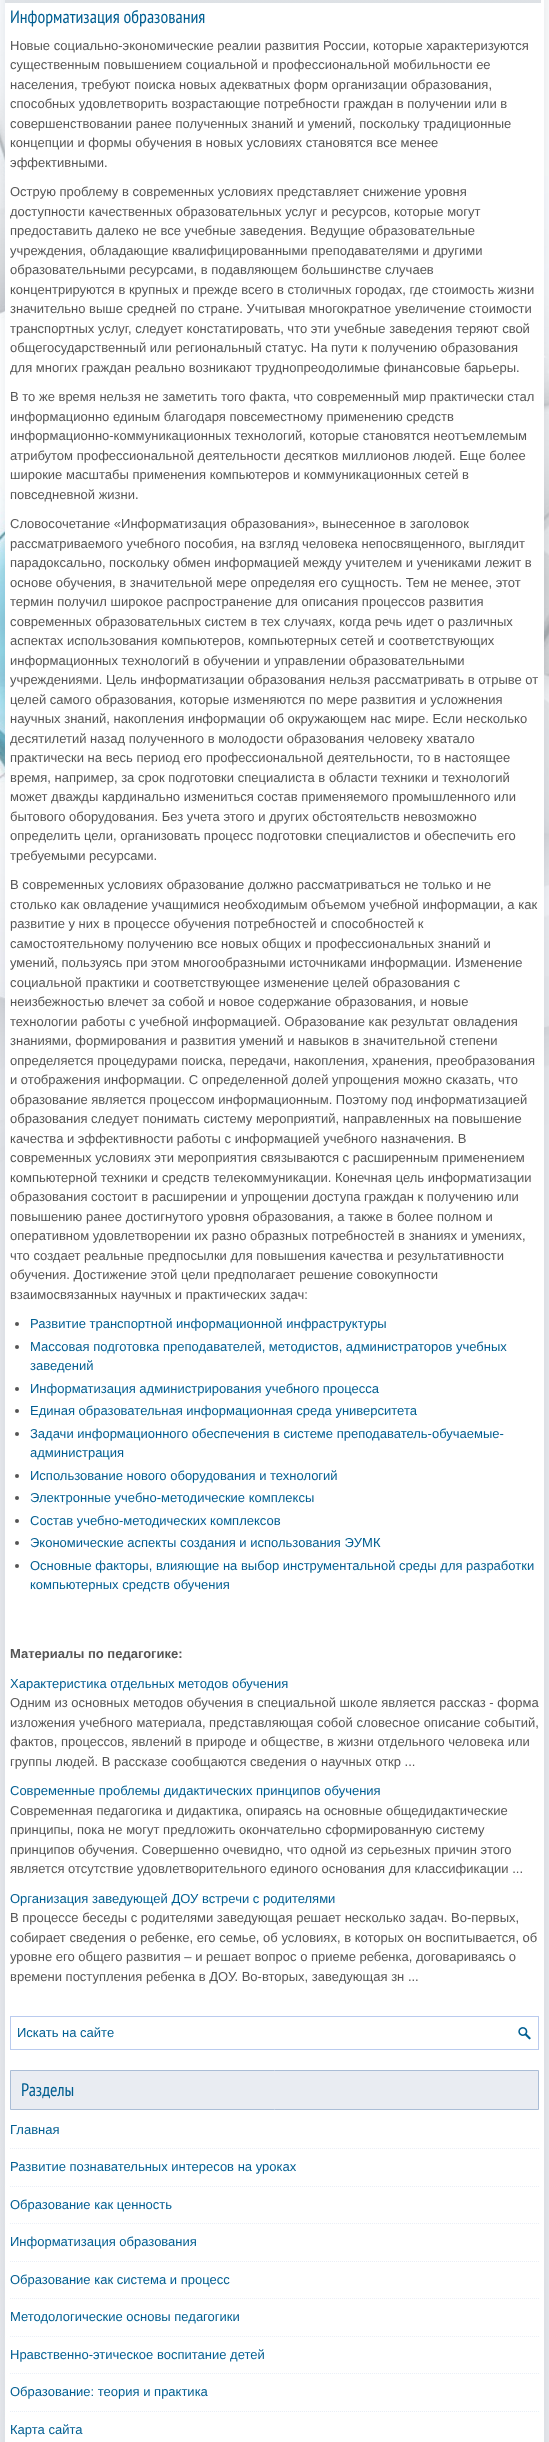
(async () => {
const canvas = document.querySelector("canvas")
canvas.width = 549
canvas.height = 2442
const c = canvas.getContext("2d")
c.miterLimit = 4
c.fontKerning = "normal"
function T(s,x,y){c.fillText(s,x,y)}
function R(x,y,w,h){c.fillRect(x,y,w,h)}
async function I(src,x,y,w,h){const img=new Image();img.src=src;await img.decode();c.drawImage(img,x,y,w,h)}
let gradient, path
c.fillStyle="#e9eaee"
R(0,0,549,2442)
await I("1.png",0,0,549,1199)
c.save()
path = new Path2D("M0 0h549v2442h-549zm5-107h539v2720h-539z")
c.clip(path,"evenodd")
c.fillStyle="#002e511a"
c.filter="blur(6.5px)"
c.beginPath()
c.rect(5,-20,539,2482)
c.fill()
c.filter="none"
c.restore()
gradient = c.createLinearGradient(273,-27,273,3)
gradient.addColorStop(0,"#eaebef")
gradient.addColorStop(1,"#dde1e5")
c.fillStyle = gradient
R(5,0,536,3)
c.fillStyle="#fff"
R(5,3,539,2439)
c.font="18px PT Sans Narrow"
c.fillStyle="#005e91"
T("Информатизация образования",10,23)
c.font="13px Liberation Sans"
c.fillStyle="#555"
T("Новые социально-экономические реалии развития России, которые характеризуются",10,50)
T("существенным повышением социальной и профессиональной мобильности ее",10,69)
T("населения, требуют поиска новых адекватных форм организации образования,",10,89)
T("способных удовлетворить возрастающие потребности граждан в получении или в",10,108)
T("совершенствовании ранее полученных знаний и умений, поскольку традиционные",10,128)
T("концепции и формы обучения в новых условиях становятся все менее",10,147)
T("эффективными.",10,167)
T("Острую проблему в современных условиях представляет снижение уровня",10,196)
T("доступности качественных образовательных услуг и ресурсов, которые могут",10,216)
T("предоставить далеко не все учебные заведения. Ведущие образовательные",10,235)
T("учреждения, обладающие квалифицированными преподавателями и другими",10,255)
T("образовательными ресурсами, в подавляющем большинстве случаев",10,274)
T("концентрируются в крупных и прежде всего в столичных городах, где стоимость жизни",10,294)
T("значительно выше средней по стране. Учитывая многократное увеличение стоимости",10,313)
T("транспортных услуг, следует констатировать, что эти учебные заведения теряют свой",10,333)
T("общегосударственный или региональный статус. На пути к получению образования",10,352)
T("для многих граждан реально возникают труднопреодолимые финансовые барьеры.",10,372)
T("В то же время нельзя не заметить того факта, что современный мир практически стал",10,401)
T("информационно единым благодаря повсеместному применению средств",10,421)
T("информационно-коммуникационных технологий, которые становятся неотъемлемым",10,440)
T("атрибутом профессиональной деятельности десятков миллионов людей. Еще более",10,460)
T("широкие масштабы применения компьютеров и коммуникационных сетей в",10,479)
T("повседневной жизни.",10,499)
T("Словосочетание «Информатизация образования», вынесенное в заголовок",10,528)
T("рассматриваемого учебного пособия, на взгляд человека непосвященного, выглядит",10,548)
T("парадоксально, поскольку обмен информацией между учителем и учениками лежит в",10,567)
T("основе обучения, в значительной мере определяя его сущность. Тем не менее, этот",10,587)
T("термин получил широкое распространение для описания процессов развития",10,606)
T("современных образовательных систем в тех случаях, когда речь идет о различных",10,626)
T("аспектах использования компьютеров, компьютерных сетей и соответствующих",10,645)
T("информационных технологий в обучении и управлении образовательными",10,665)
T("учреждениями. Цель информатизации образования нельзя рассматривать в отрыве от",10,684)
T("целей самого образования, которые изменяются по мере развития и усложнения",10,704)
T("научных знаний, накопления информации об окружающем нас мире. Если несколько",10,723)
T("десятилетий назад полученного в молодости образования человеку хватало",10,743)
T("практически на весь период его профессиональной деятельности, то в настоящее",10,762)
T("время, например, за срок подготовки специалиста в области техники и технологий",10,782)
T("может дважды кардинально измениться состав применяемого промышленного или",10,801)
T("бытового оборудования. Без учета этого и других обстоятельств невозможно",10,821)
T("определить цели, организовать процесс подготовки специалистов и обеспечить его",10,840)
T("требуемыми ресурсами.",10,860)
T("В современных условиях образование должно рассматриваться не только и не",10,889)
T("столько как овладение учащимися необходимым объемом учебной информации, а как",10,909)
T("развитие у них в процессе обучения потребностей и способностей к",10,928)
T("самостоятельному получению все новых общих и профессиональных знаний и",10,948)
T("умений, пользуясь при этом многообразными источниками информации. Изменение",10,967)
T("социальной практики и соответствующее изменение целей образования с",10,987)
T("неизбежностью влечет за собой и новое содержание образования, и новые",10,1006)
T("технологии работы с учебной информацией. Образование как результат овладения",10,1026)
T("знаниями, формирования и развития умений и навыков в значительной степени",10,1045)
T("определяется процедурами поиска, передачи, накопления, хранения, преобразования",10,1065)
T("и отображения информации. С определенной долей упрощения можно сказать, что",10,1084)
T("образование является процессом информационным. Поэтому под информатизацией",10,1104)
T("образования следует понимать систему мероприятий, направленных на повышение",10,1123)
T("качества и эффективности работы с информацией учебного назначения. В",10,1143)
T("современных условиях эти мероприятия связываются с расширенным применением",10,1162)
T("компьютерной техники и средств телекоммуникации. Конечная цель информатизации",10,1182)
T("образования состоит в расширении и упрощении доступа граждан к получению или",10,1201)
T("повышению ранее достигнутого уровня образования, а также в более полном и",10,1221)
T("оперативном удовлетворении их разно образных потребностей в знаниях и умениях,",10,1240)
T("что создает реальные предпосылки для повышения качества и результативности",10,1260)
T("обучения. Достижение этой цели предполагает решение совокупности",10,1279)
T("взаимосвязанных научных и практических задач:",10,1299)
c.beginPath()
c.arc(17,1324,2,0,7)
c.fill()
c.fillStyle="#005e91"
T("Развитие транспортной информационной инфраструктуры",30,1328)
c.fillStyle="#555"
c.beginPath()
c.arc(17,1347,2,0,7)
c.fill()
c.fillStyle="#005e91"
T("Массовая подготовка преподавателей, методистов, администраторов учебных",30,1351)
T("заведений",30,1370)
c.fillStyle="#555"
c.beginPath()
c.arc(17,1389,2,0,7)
c.fill()
c.fillStyle="#005e91"
T("Информатизация администрирования учебного процесса",30,1393)
c.fillStyle="#555"
c.beginPath()
c.arc(17,1411,2,0,7)
c.fill()
c.fillStyle="#005e91"
T("Единая образовательная информационная среда университета",30,1415)
c.fillStyle="#555"
c.beginPath()
c.arc(17,1434,2,0,7)
c.fill()
c.fillStyle="#005e91"
T("Задачи информационного обеспечения в системе преподаватель-обучаемые-",30,1438)
T("администрация",30,1457)
c.fillStyle="#555"
c.beginPath()
c.arc(17,1476,2,0,7)
c.fill()
c.fillStyle="#005e91"
T("Использование нового оборудования и технологий",30,1480)
c.fillStyle="#555"
c.beginPath()
c.arc(17,1498,2,0,7)
c.fill()
c.fillStyle="#005e91"
T("Электронные учебно-методические комплексы",30,1502)
c.fillStyle="#555"
c.beginPath()
c.arc(17,1521,2,0,7)
c.fill()
c.fillStyle="#005e91"
T("Состав учебно-методических комплексов",30,1525)
c.fillStyle="#555"
c.beginPath()
c.arc(17,1543,2,0,7)
c.fill()
c.fillStyle="#005e91"
T("Экономические аспекты создания и использования ЭУМК",30,1547)
c.fillStyle="#555"
c.beginPath()
c.arc(17,1566,2,0,7)
c.fill()
c.fillStyle="#005e91"
T("Основные факторы, влияющие на выбор инструментальной среды для разработки",30,1570)
T("компьютерных средств обучения",30,1589)
c.font="bold 13px Liberation Sans"
c.fillStyle="#555"
T("Материалы по педагогике:",10,1658)
c.font="13px Liberation Sans"
c.fillStyle="#005e91"
T("Характеристика отдельных методов обучения",10,1688)
c.fillStyle="#555"
T("Одним из основных методов обучения в специальной школе является рассказ - форма",10,1707)
T("изложения учебного материала, представляющая собой словесное описание событий,",10,1727)
T("фактов, процессов, явлений в природе и обществе, в жизни отдельного человека или",10,1746)
T("группы людей. В рассказе сообщаются сведения о научных откр ...",10,1766)
c.fillStyle="#005e91"
T("Современные проблемы дидактических принципов обучения",10,1795)
c.fillStyle="#555"
T("Современная педагогика и дидактика, опираясь на основные общедидактические",10,1815)
T("принципы, пока не могут предложить окончательно сформированную систему",10,1834)
T("принципов обучения. Совершенно очевидно, что одной из серьезных причин этого",10,1854)
T("является отсутствие удовлетворительного единого основания для классификации ...",10,1873)
c.fillStyle="#005e91"
T("Организация заведующей ДОУ встречи с родителями",10,1903)
c.fillStyle="#555"
T("В процессе беседы с родителями заведующая решает несколько задач. Во-первых,",10,1922)
T("собирает сведения о ребенке, его семье, об условиях, в которых он воспитывается, об",10,1942)
T("уровне его общего развития – и решает вопрос о приеме ребенка, договариваясь о",10,1961)
T("времени поступления ребенка в ДОУ. Во-вторых, заведующая зн ...",10,1981)
await I("2.png",518,2027,13,13)
c.strokeStyle="#bacbee"
c.strokeRect(10.5,2016.5,528,33)
c.fillStyle="#005e91"
T("Искать на сайте",17,2037)
c.fillStyle="#e9ecf2"
c.beginPath()
c.rect(10.5,2070.5,528,39)
c.fill()
c.strokeStyle="#aabdd6"
c.stroke()
c.font="18px PT Sans Narrow"
c.fillStyle="#005e91"
T("Разделы",21,2096)
path = new Path2D("M10 2148.5h529")
c.strokeStyle="#eaeff7"
c.setLineDash([1,1])
c.stroke(path)
c.font="13px Liberation Sans"
T("Главная",10,2134)
path = new Path2D("M10 2186.5h529")
c.stroke(path)
T("Развитие познавательных интересов на уроках",10,2171)
path = new Path2D("M10 2223.5h529")
c.stroke(path)
T("Образование как ценность",10,2209)
path = new Path2D("M10 2261.5h529")
c.stroke(path)
T("Информатизация образования",10,2246)
path = new Path2D("M10 2298.5h529")
c.stroke(path)
T("Образование как система и процесс",10,2284)
path = new Path2D("M10 2336.5h529")
c.stroke(path)
T("Методологические основы педагогики",10,2321)
path = new Path2D("M10 2373.5h529")
c.stroke(path)
T("Нравственно-этическое воспитание детей",10,2359)
path = new Path2D("M10 2411.5h529")
c.stroke(path)
T("Образование: теория и практика",10,2396)
T("Карта сайта",10,2434)
})()
